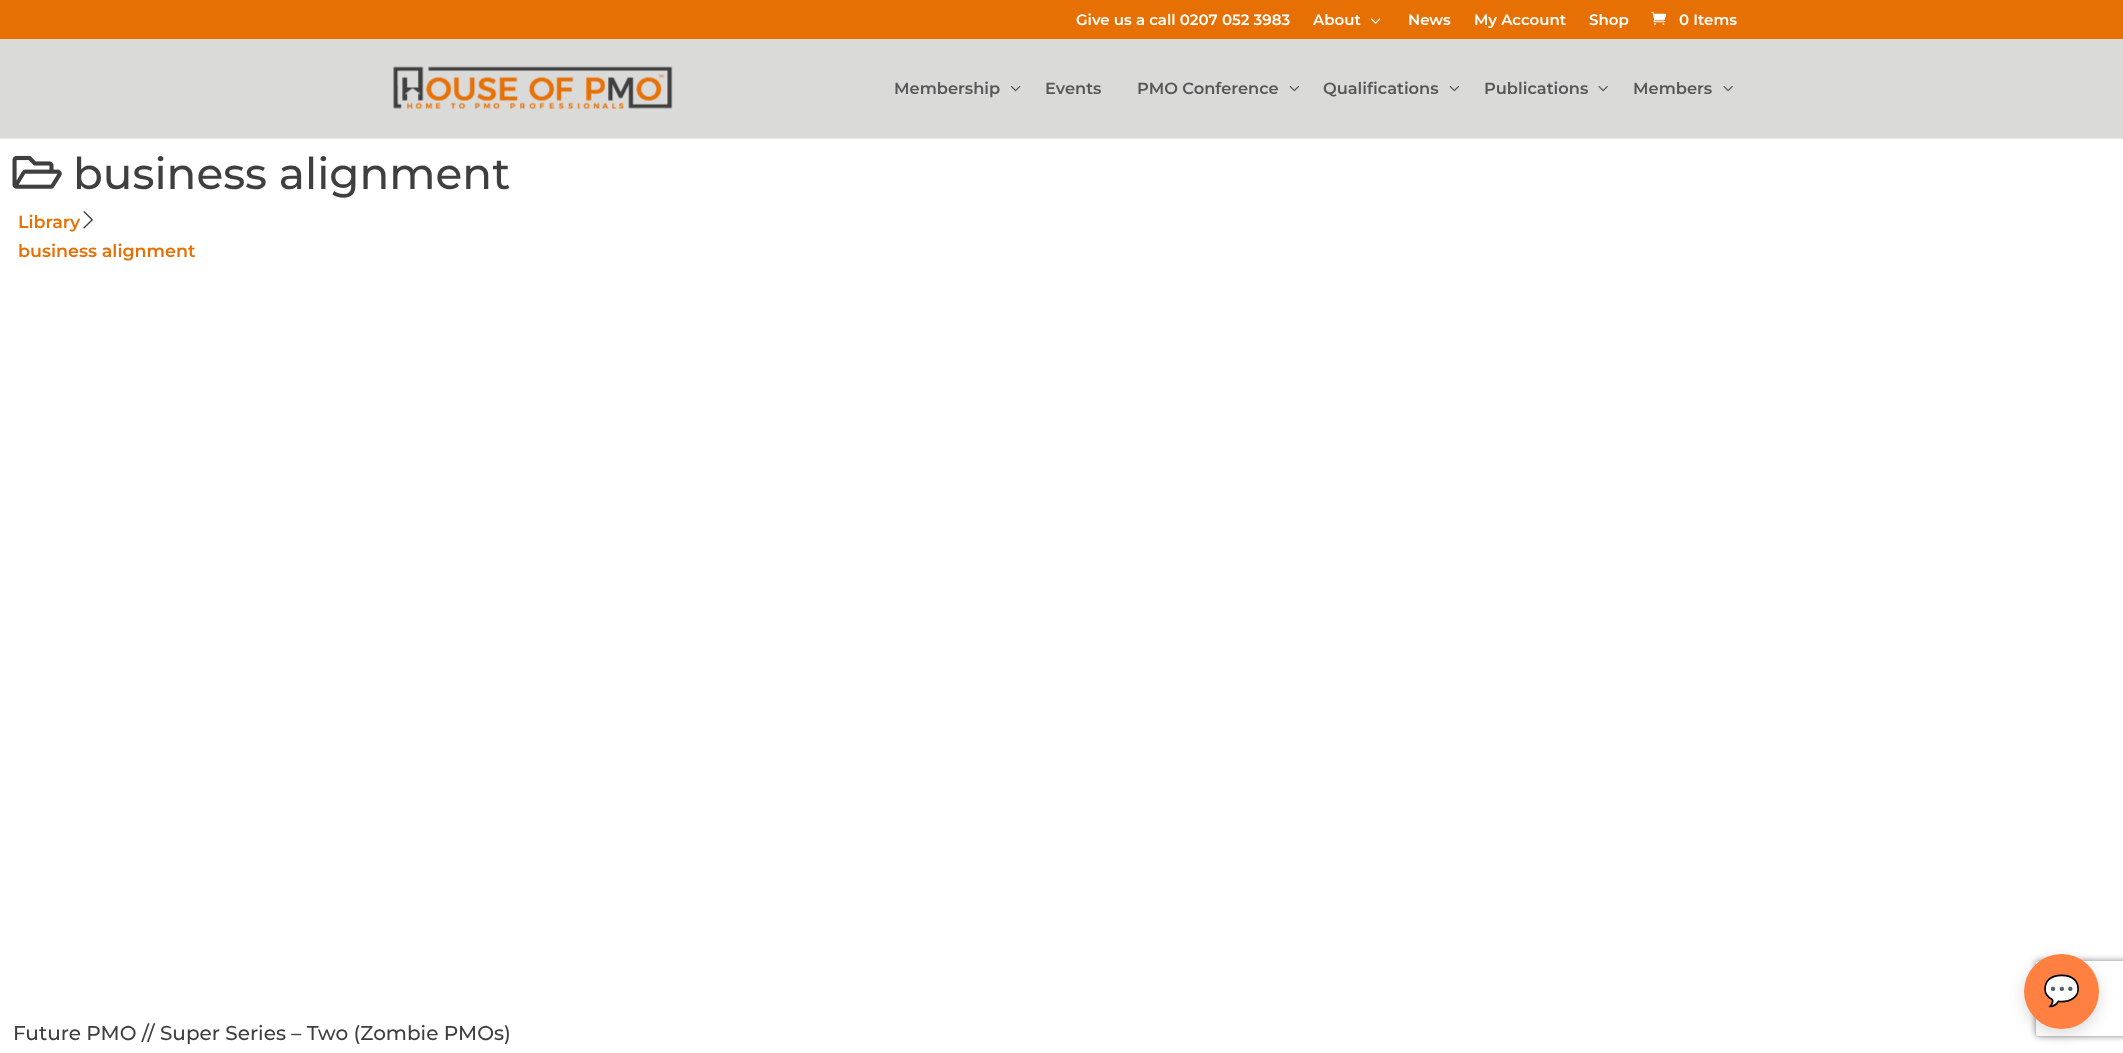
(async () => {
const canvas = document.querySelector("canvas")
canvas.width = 2123
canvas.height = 1053
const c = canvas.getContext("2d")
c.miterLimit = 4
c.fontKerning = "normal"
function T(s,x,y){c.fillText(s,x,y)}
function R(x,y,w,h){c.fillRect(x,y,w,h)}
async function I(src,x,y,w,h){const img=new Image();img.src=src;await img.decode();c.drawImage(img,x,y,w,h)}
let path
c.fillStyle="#fff"
R(0,0,2123,1053)
c.fillStyle="#e77005"
R(0,0,2123,39)
c.font="600 15px Montserrat"
c.fillStyle="#fff"
T("Give us a call 0207 052 3983",1076,25)
T("About",1313,25)
await I("1.png",1371,18,10,6)
T("News",1408,25)
T("My Account",1474,25)
T("Shop",1589,25)
await I("2.png",1651,11,16,14)
T("0 Items",1679,25)
c.fillStyle="#e6e6e6"
path = new Path2D("M0 138v1h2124v-99v98z")
c.fill(path)
c.fillStyle="#dadad9"
R(0,39,2123,99)
await I("3.png",393,66,280,43)
c.font="600 16.25px Montserrat"
c.fillStyle="#575757"
T("Membership",894,94)
await I("4.png",1011,86,10,6)
T("Events",1045,94)
T("PMO Conference",1137,94)
await I("5.png",1289,86,10,6)
T("Qualifications",1323,94)
await I("5.png",1449,86,10,6)
T("Publications",1484,94)
await I("6.png",1598,86,10,6)
T("Members",1633,94)
await I("6.png",1723,86,10,6)
await I("7.png",12,155,50,34)
c.font="500 43.75px Montserrat"
c.fillStyle="#3f3f3f"
T("business alignment",73,189)
c.font="600 17.5px Montserrat"
c.fillStyle="#e77005"
T("Library",18,228)
await I("8.png",83,211,10,18)
T("business alignment",18,257)
c.font="500 20px Montserrat"
c.fillStyle="#3f3f3f"
T("Future PMO // Super Series – Two (Zombie PMOs)",13,1040)
c.save()
path = new Path2D("M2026 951h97v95h-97zm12.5 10h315c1.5 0 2.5 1 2.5 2.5v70c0 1.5-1 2.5-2.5 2.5h-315c-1.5 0-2.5-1-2.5-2.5v-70c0-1.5 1-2.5 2.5-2.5z")
c.clip(path,"evenodd")
c.fillStyle="#808080"
c.filter="blur(3px)"
c.beginPath()
c.roundRect(2036,961,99,75,2.5)
c.fill()
c.filter="none"
c.restore()
c.fillStyle="#00000026"
c.filter="blur(7.5px)"
c.beginPath()
c.roundRect(2024,959,75,75,37.5)
c.fill()
c.filter="none"
c.fillStyle="#ff8040"
c.beginPath()
c.arc(2061.5,991.5,37.5,0,7)
c.fill()
c.font="30px Noto Color Emoji"
c.fillStyle="#fff"
T("💬",2043,1001)
})()
